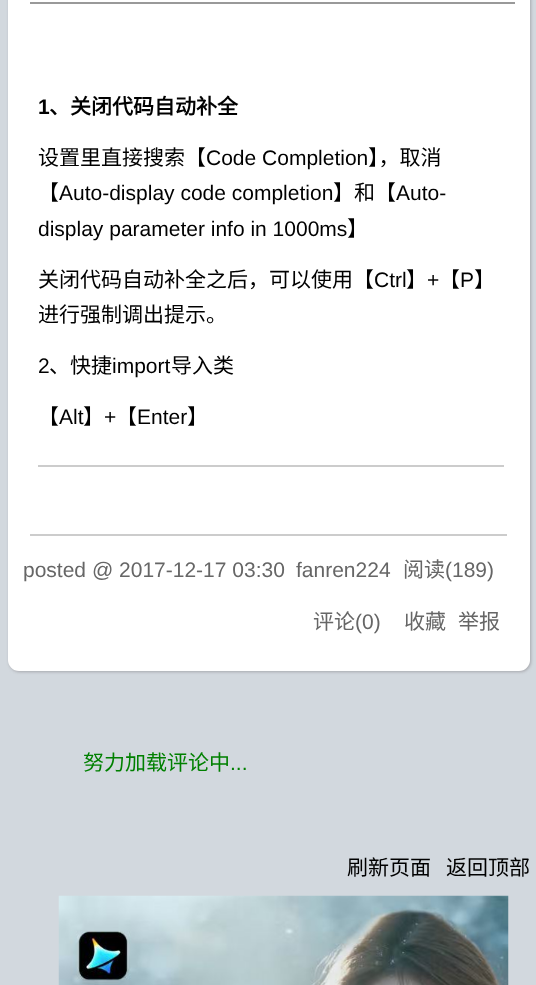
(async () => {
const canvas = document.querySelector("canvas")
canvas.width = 536
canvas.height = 985
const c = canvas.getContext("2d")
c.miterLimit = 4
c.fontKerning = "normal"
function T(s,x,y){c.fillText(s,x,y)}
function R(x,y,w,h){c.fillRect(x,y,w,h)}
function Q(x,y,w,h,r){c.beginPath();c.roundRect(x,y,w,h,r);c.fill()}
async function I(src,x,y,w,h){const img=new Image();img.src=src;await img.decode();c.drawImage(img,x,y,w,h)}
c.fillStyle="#d2d8de"
R(0,0,536,985)
c.fillStyle="#a7a8ad"
c.filter="blur(1.5px)"
c.beginPath()
c.roundRect(9,-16,522,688,11)
c.fill()
c.filter="none"
c.fillStyle="#fff"
Q(8,-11,522,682,11)
c.fillStyle="#999"
R(30,2,485,2)
c.fillStyle="#ccc"
R(30,534,477,2)
R(38,465,466,2)
c.font="bold 21px Liberation Sans"
c.fillStyle="#000"
T("1",38,114)
c.font="bold 21px Noto Sans CJK SC"
T("、关闭代码自动补全",49,114)
c.font="21px Noto Sans CJK SC"
T("设置里直接搜索【",38,165)
c.font="21px Liberation Sans"
T("Code Completion",206,165)
c.font="21px Noto Sans CJK SC"
T("】，取消",368,165)
T("【",38,200)
c.font="21px Liberation Sans"
T("Auto-display code completion",59,200)
c.font="21px Noto Sans CJK SC"
T("】和【",333,200)
c.font="21px Liberation Sans"
T("Auto-",396,200)
T("display parameter info in 1000ms",38,236)
c.font="21px Noto Sans CJK SC"
T("】",347,236)
T("关闭代码自动补全之后，可以使用【",38,287)
c.font="21px Liberation Sans"
T("Ctrl",374,287)
c.font="21px Noto Sans CJK SC"
T("】",406,287)
c.font="21px Liberation Sans"
T("+",427,287)
c.font="21px Noto Sans CJK SC"
T("【",439,287)
c.font="21px Liberation Sans"
T("P",460,287)
c.font="21px Noto Sans CJK SC"
T("】",474,287)
T("进行强制调出提示。",38,322)
c.font="21px Liberation Sans"
T("2",38,373)
c.font="21px Noto Sans CJK SC"
T("、快捷",49,373)
c.font="21px Liberation Sans"
T("import",112,373)
c.font="21px Noto Sans CJK SC"
T("导入类",171,373)
T("【",38,424)
c.font="21px Liberation Sans"
T("Alt",59,424)
c.font="21px Noto Sans CJK SC"
T("】",83,424)
c.font="21px Liberation Sans"
T("+",104,424)
c.font="21px Noto Sans CJK SC"
T("【",116,424)
c.font="21px Liberation Sans"
T("Enter",137,424)
c.font="21px Noto Sans CJK SC"
T("】",187,424)
c.font="21px Liberation Sans"
c.fillStyle="#666"
T("posted @ 2017-12-17 03:30",23,577)
T("fanren224",296,577)
c.font="21px Noto Sans CJK SC"
T("阅读",403,577)
c.font="21px Liberation Sans"
T("(189)",445,577)
c.font="21px Noto Sans CJK SC"
T("评论",313,629)
c.font="21px Liberation Sans"
T("(0)",355,629)
c.font="21px Noto Sans CJK SC"
T("收藏",404,629)
T("举报",458,629)
c.fillStyle="#008000"
T("努力加载评论中",83,770)
c.font="21px Liberation Sans"
T("...",230,770)
c.font="21px Noto Sans CJK SC"
c.fillStyle="#000"
T("刷新页面",347,875)
T("返回顶部",446,875)
await I("1.png",58,895,451,90)
})()
